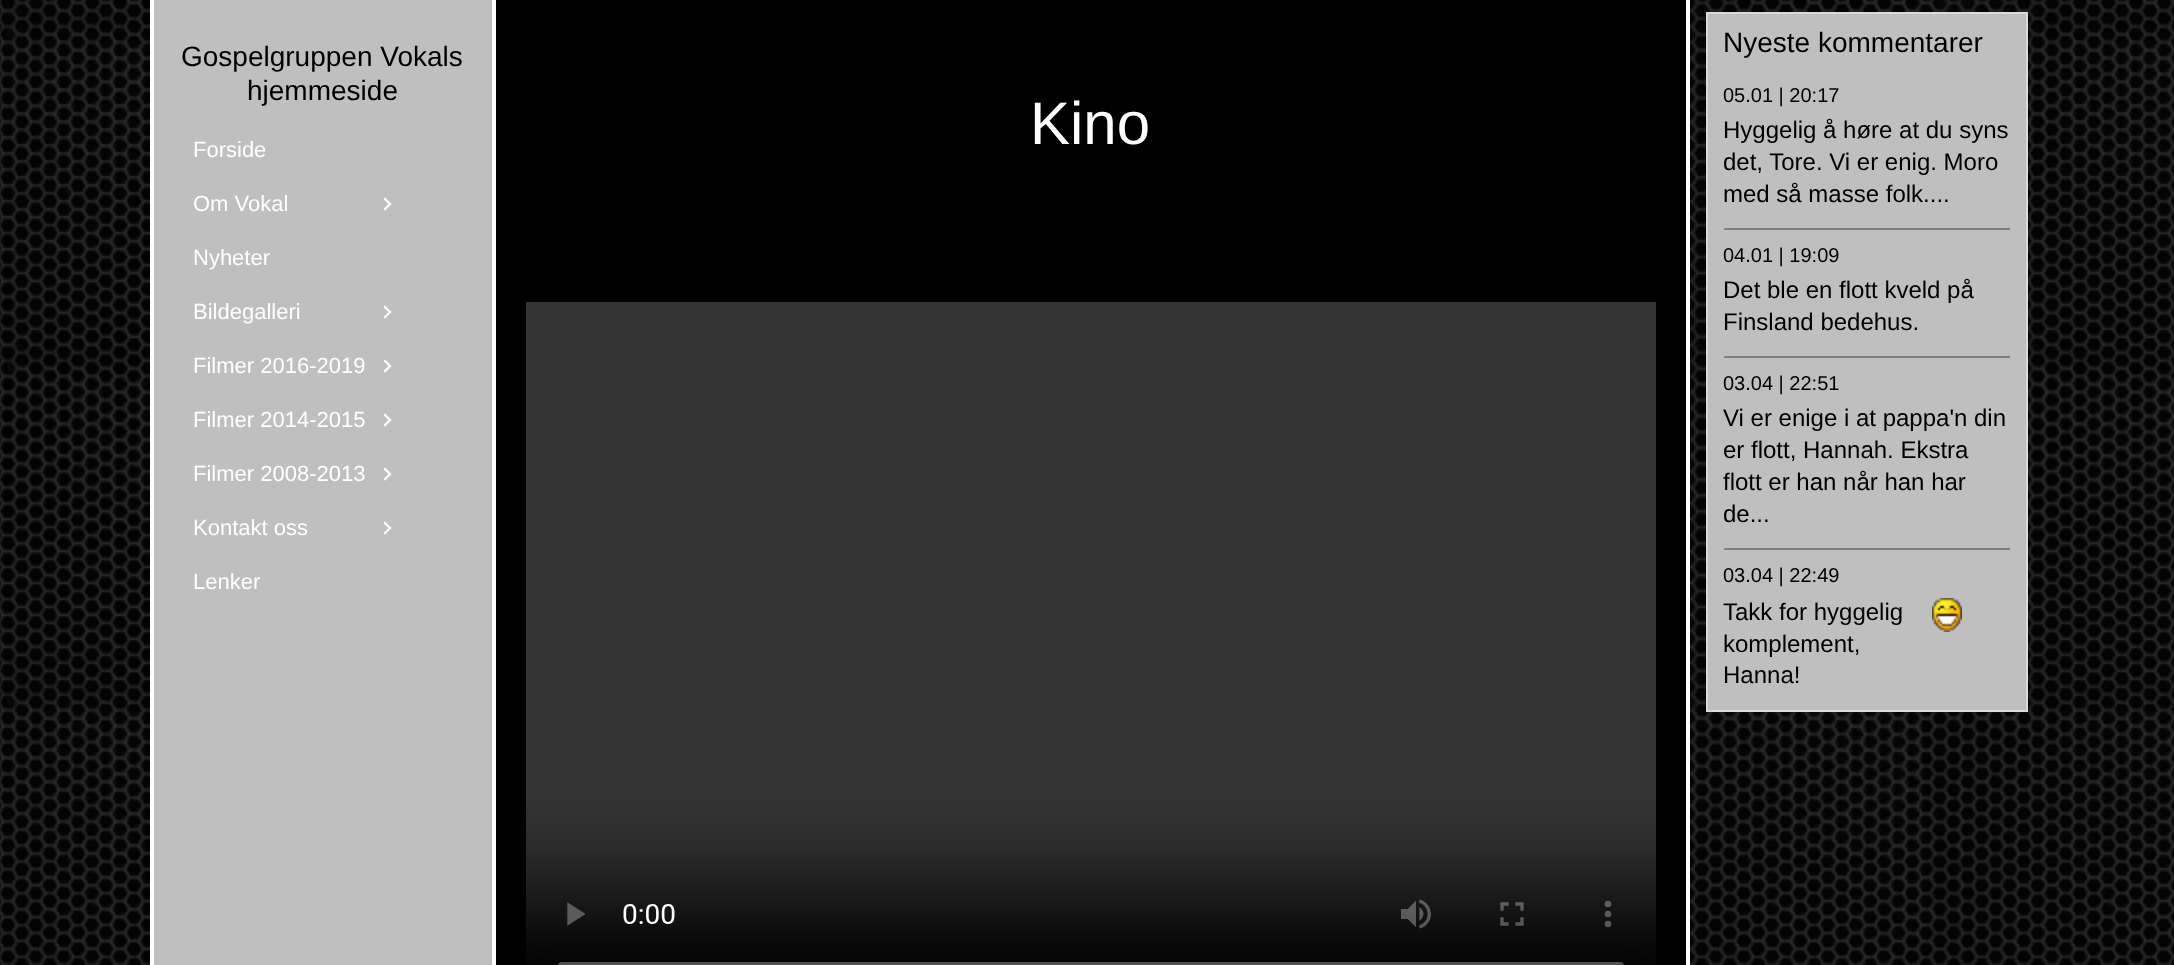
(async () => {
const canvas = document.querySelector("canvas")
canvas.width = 2174
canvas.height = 965
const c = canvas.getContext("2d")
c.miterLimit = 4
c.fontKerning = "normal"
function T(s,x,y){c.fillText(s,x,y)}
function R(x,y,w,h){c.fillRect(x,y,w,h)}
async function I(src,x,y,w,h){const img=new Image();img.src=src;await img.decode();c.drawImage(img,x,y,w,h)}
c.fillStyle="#000"
R(0,0,2174,965)
await I("1.png",0,0,2174,965)
c.fillStyle="#fff"
R(150,0,1540,965)
c.fillStyle="#c0bfbf"
R(154,0,338,965)
c.font="28px Liberation Sans"
c.fillStyle="#000"
T("Gospelgruppen Vokals",181,66)
T("hjemmeside",247,100)
R(496,0,1190,965)
c.font="60px Liberation Sans"
c.fillStyle="#fff"
T("Kino",1030,144)
await I("2.png",526,302,1130,663)
c.fillStyle="#c0bfbf"
c.beginPath()
c.rect(1707,13,320,698)
c.fill()
c.strokeStyle="#dadada"
c.lineWidth=2
c.stroke()
c.font="28px Liberation Sans"
c.fillStyle="#000"
T("Nyeste kommentarer",1723,52)
c.font="20px Liberation Sans"
T("05.01 | 20:17",1723,102)
c.font="24px Liberation Sans"
T("Hyggelig å høre at du syns",1723,138)
T("det, Tore. Vi er enig. Moro",1723,170)
T("med så masse folk....",1723,202)
await I("3.png",1724,228,286,2)
c.font="20px Liberation Sans"
T("04.01 | 19:09",1723,262)
c.font="24px Liberation Sans"
T("Det ble en flott kveld på",1723,298)
T("Finsland bedehus.",1723,330)
await I("3.png",1724,356,286,2)
c.font="20px Liberation Sans"
T("03.04 | 22:51",1723,390)
c.font="24px Liberation Sans"
T("Vi er enige i at pappa'n din",1723,426)
T("er flott, Hannah. Ekstra",1723,458)
T("flott er han når han har",1723,490)
T("de...",1723,522)
await I("3.png",1724,548,286,2)
c.font="20px Liberation Sans"
T("03.04 | 22:49",1723,582)
c.font="24px Liberation Sans"
T("Takk for hyggelig",1723,620)
T("komplement,",1723,652)
T("Hanna!",1723,683)
await I("4.png",1932,598,30,34)
c.font="22px Liberation Sans"
c.fillStyle="#fff"
T("Forside",193,157)
T("Om Vokal",193,211)
await I("5.png",383,197,9,14)
T("Nyheter",193,265)
T("Bildegalleri",193,319)
await I("5.png",383,305,9,14)
T("Filmer 2016-2019",193,373)
await I("5.png",383,359,9,14)
T("Filmer 2014-2015",193,427)
await I("5.png",383,413,9,14)
T("Filmer 2008-2013",193,481)
await I("5.png",383,467,9,14)
T("Kontakt oss",193,535)
await I("5.png",383,521,9,14)
T("Lenker",193,589)
})()
